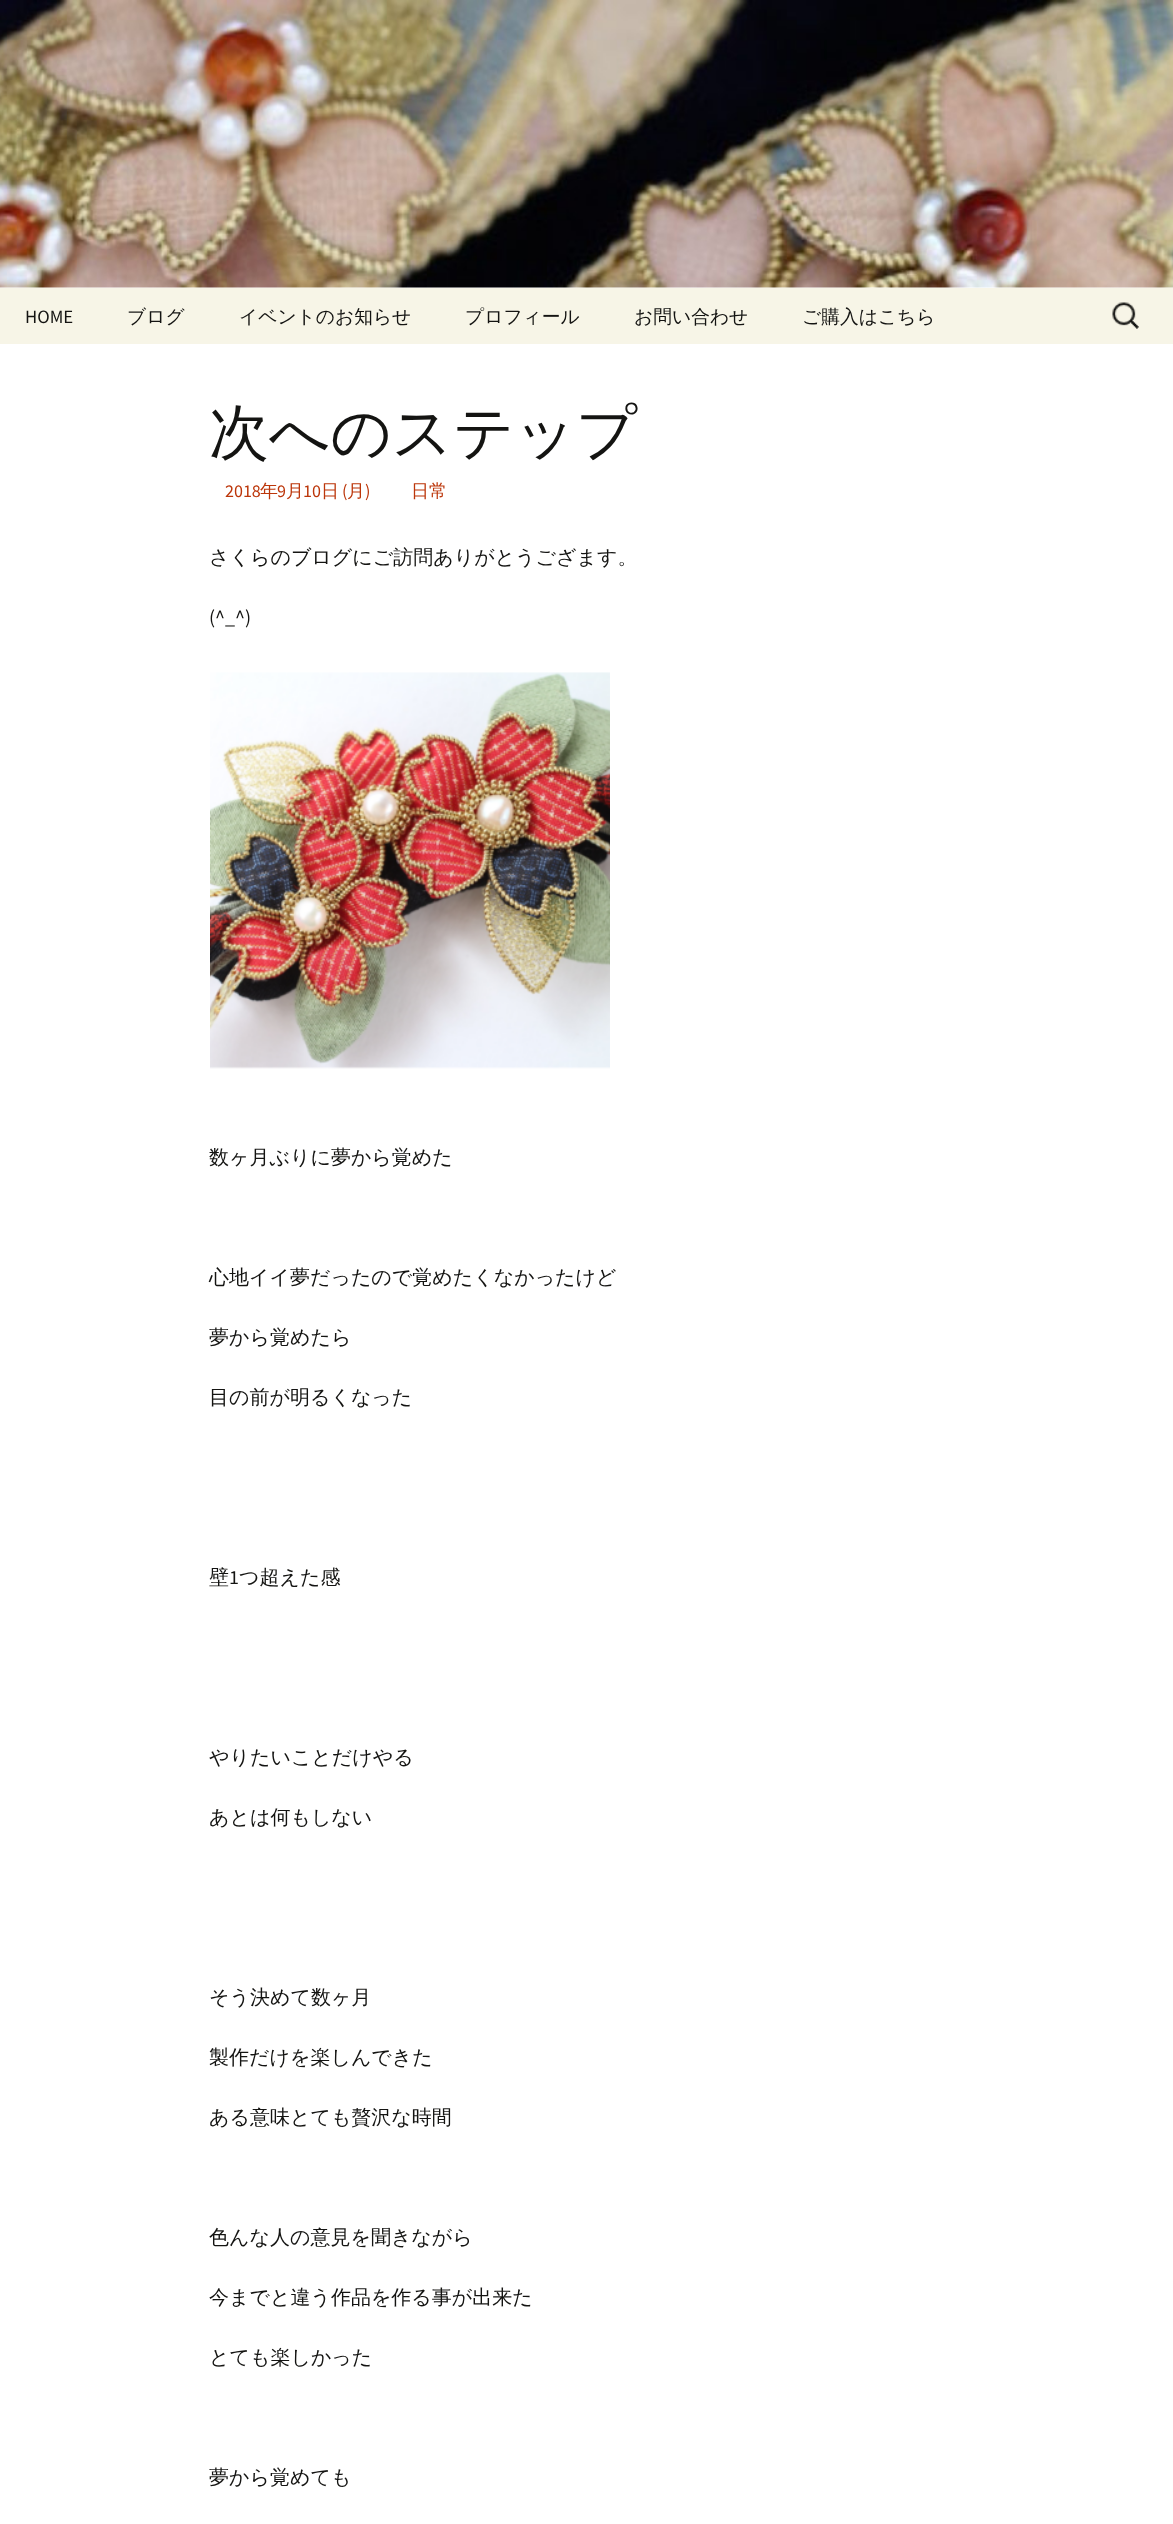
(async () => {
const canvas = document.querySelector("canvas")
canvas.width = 1173
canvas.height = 2524
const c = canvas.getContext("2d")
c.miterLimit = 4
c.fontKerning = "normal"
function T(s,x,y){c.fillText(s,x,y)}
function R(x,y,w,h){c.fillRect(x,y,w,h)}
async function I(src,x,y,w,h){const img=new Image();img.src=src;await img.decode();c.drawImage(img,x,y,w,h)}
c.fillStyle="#fff"
R(0,0,1173,2524)
await I("1.png",0,0,1173,288)
c.fillStyle="#f7f5e7"
R(0,288,1173,56)
c.font="18.75px Source Sans Pro"
c.fillStyle="#141412"
T("HOME",25,323)
c.font="500 18.75px WenQuanYi Zen Hei"
T("ブログ",127,323)
T("イベントのお知らせ",239,323)
T("プロフィール",465,323)
T("お問い合わせ",634,323)
T("ご購入はこちら",802,323)
await I("2.png",1112,302,27,27)
c.font="500 60px WenQuanYi Zen Hei"
T("次へのステップ",209,453)
c.font="18px Source Sans Pro"
c.fillStyle="#bc360a"
T("2018",225,497)
c.font="500 18px WenQuanYi Zen Hei"
T("年",260,497)
c.font="18px Source Sans Pro"
T("9",277,497)
c.font="500 18px WenQuanYi Zen Hei"
T("月",286,497)
c.font="18px Source Sans Pro"
T("10",303,497)
c.font="500 18px WenQuanYi Zen Hei"
T("日",321,497)
c.font="18px Source Sans Pro"
T("(",342,497)
c.font="500 18px WenQuanYi Zen Hei"
T("月",347,497)
c.font="18px Source Sans Pro"
T(")",365,497)
c.font="500 18px WenQuanYi Zen Hei"
T("日常",411,497)
c.font="500 20px WenQuanYi Zen Hei"
c.fillStyle="#141412"
T("さくらのブログにご訪問ありがとうござます。",209,564)
c.font="20px Source Sans Pro"
T("(^_^)",209,624)
await I("3.png",210,672,400,397)
c.font="500 20px WenQuanYi Zen Hei"
T("数ヶ月ぶりに夢から覚めた",209,1164)
T("心地イイ夢だったので覚めたくなかったけど",209,1284)
T("夢から覚めたら",209,1344)
T("目の前が明るくなった",209,1404)
T("壁",209,1584)
c.font="20px Source Sans Pro"
T("1",229,1584)
c.font="500 20px WenQuanYi Zen Hei"
T("つ超えた感",239,1584)
T("やりたいことだけやる",209,1764)
T("あとは何もしない",209,1824)
T("そう決めて数ヶ月",209,2004)
T("製作だけを楽しんできた",209,2064)
T("ある意味とても贅沢な時間",209,2124)
T("色んな人の意見を聞きながら",209,2244)
T("今までと違う作品を作る事が出来た",209,2304)
T("とても楽しかった",209,2364)
T("夢から覚めても",209,2484)
})()
